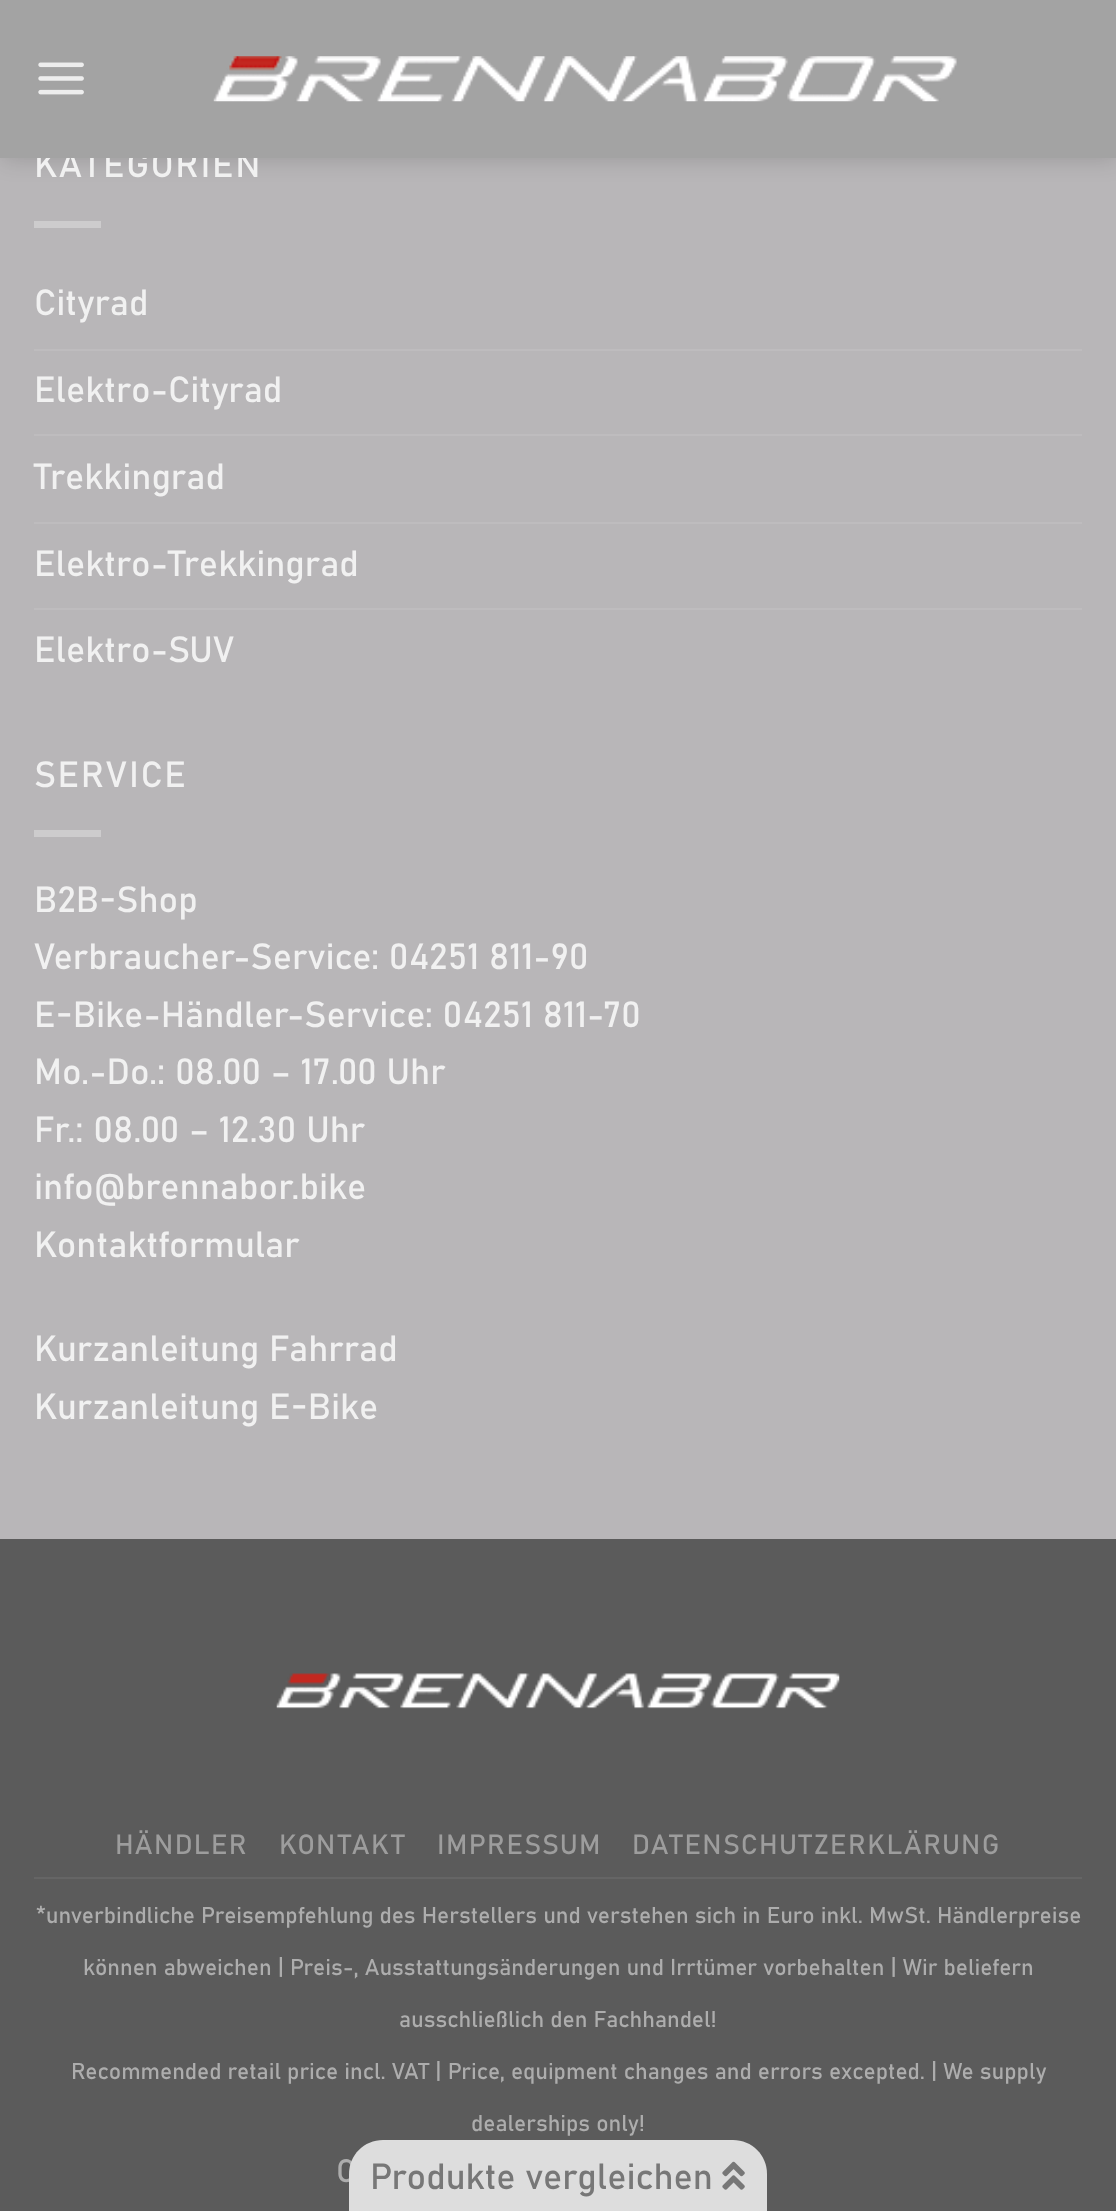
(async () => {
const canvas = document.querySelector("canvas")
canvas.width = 1116
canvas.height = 2211
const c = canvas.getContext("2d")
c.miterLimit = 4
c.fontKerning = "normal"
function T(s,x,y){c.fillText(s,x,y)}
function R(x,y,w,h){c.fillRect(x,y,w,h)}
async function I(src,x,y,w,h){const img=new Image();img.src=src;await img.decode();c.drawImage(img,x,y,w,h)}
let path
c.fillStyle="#b8b6b8"
R(0,0,1116,2211)
c.fillStyle="#00000026"
c.filter="blur(11px)"
c.beginPath()
c.rect(2,2,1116,158)
c.fill()
c.filter="none"
c.letterSpacing="1.75px"
c.font="36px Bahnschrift"
c.fillStyle="#f1f1f1"
T("KATEGORIEN",34,177)
c.fillStyle="#a3a3a3"
R(0,0,1116,158)
await I("1.png",38,62,46,33)
await I("2.png",213,56,744,46)
c.fillStyle="#cdcccd"
R(34,221,67,7)
c.letterSpacing="0px"
c.fillStyle="#f1f1f1"
T("Cityrad",34,315)
c.fillStyle="#bebcbe"
R(34,349,1048,2)
c.fillStyle="#f1f1f1"
T("Elektro-Cityrad",34,402)
c.fillStyle="#bebcbe"
R(34,434,1048,2)
c.fillStyle="#f1f1f1"
T("Trekkingrad",34,489)
c.fillStyle="#bebcbe"
R(34,522,1048,2)
c.fillStyle="#f1f1f1"
T("Elektro-Trekkingrad",34,576)
c.fillStyle="#bebcbe"
R(34,608,1048,2)
c.fillStyle="#f1f1f1"
T("Elektro-SUV",34,662)
c.letterSpacing="1.75px"
T("SERVICE",34,787)
c.fillStyle="#cdcccd"
R(34,830,67,7)
c.letterSpacing="0px"
c.fillStyle="#f1f1f1"
T("B2B-Shop",34,912)
T("Verbraucher-Service: 04251 811-90",34,969)
T("E-Bike-Händler-Service: 04251 811-70",34,1027)
T("Mo.-Do.: 08.00 – 17.00 Uhr",34,1084)
T("Fr.: 08.00 – 12.30 Uhr",34,1142)
T("info@brennabor.bike",34,1199)
T("Kontaktformular",34,1257)
T("Kurzanleitung Fahrrad",34,1361)
T("Kurzanleitung E-Bike",34,1419)
c.fillStyle="#5b5b5b"
R(0,1539,1116,672)
await I("3.png",276,1673,564,36)
c.fillStyle="#656565"
R(34,1877,1048,2)
c.letterSpacing="1.4px"
c.font="27.5px Bahnschrift"
c.fillStyle="#9d9d9d"
T("HÄNDLER",115,1854)
T("KONTAKT",279,1854)
T("IMPRESSUM",437,1854)
T("DATENSCHUTZERKLÄRUNG",632,1854)
c.letterSpacing="0px"
c.font="22.7px Bahnschrift"
c.fillStyle="#adadad"
T("*unverbindliche Preisempfehlung des Herstellers und verstehen sich in Euro inkl. MwSt. Händlerpreise",36,1923)
T("können abweichen | Preis-, Ausstattungsänderungen und Irrtümer vorbehalten | Wir beliefern",83,1975)
T("ausschließlich den Fachhandel!",399,2027)
T("Recommended retail price incl. VAT | Price, equipment changes and errors excepted. | We supply",71,2079)
T("dealerships only!",471,2131)
c.font="32px Bahnschrift"
T("C",336,2182)
c.fillStyle="#ddd"
path = new Path2D("M383 2140h350c19 0 34 15 34 34v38h-418v-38c0-19 15-34 34-34z")
c.fill(path)
c.font="36px Bahnschrift"
c.fillStyle="#777"
T("Produkte vergleichen",370,2189)
await I("4.png",722,2161,23,29)
})()
